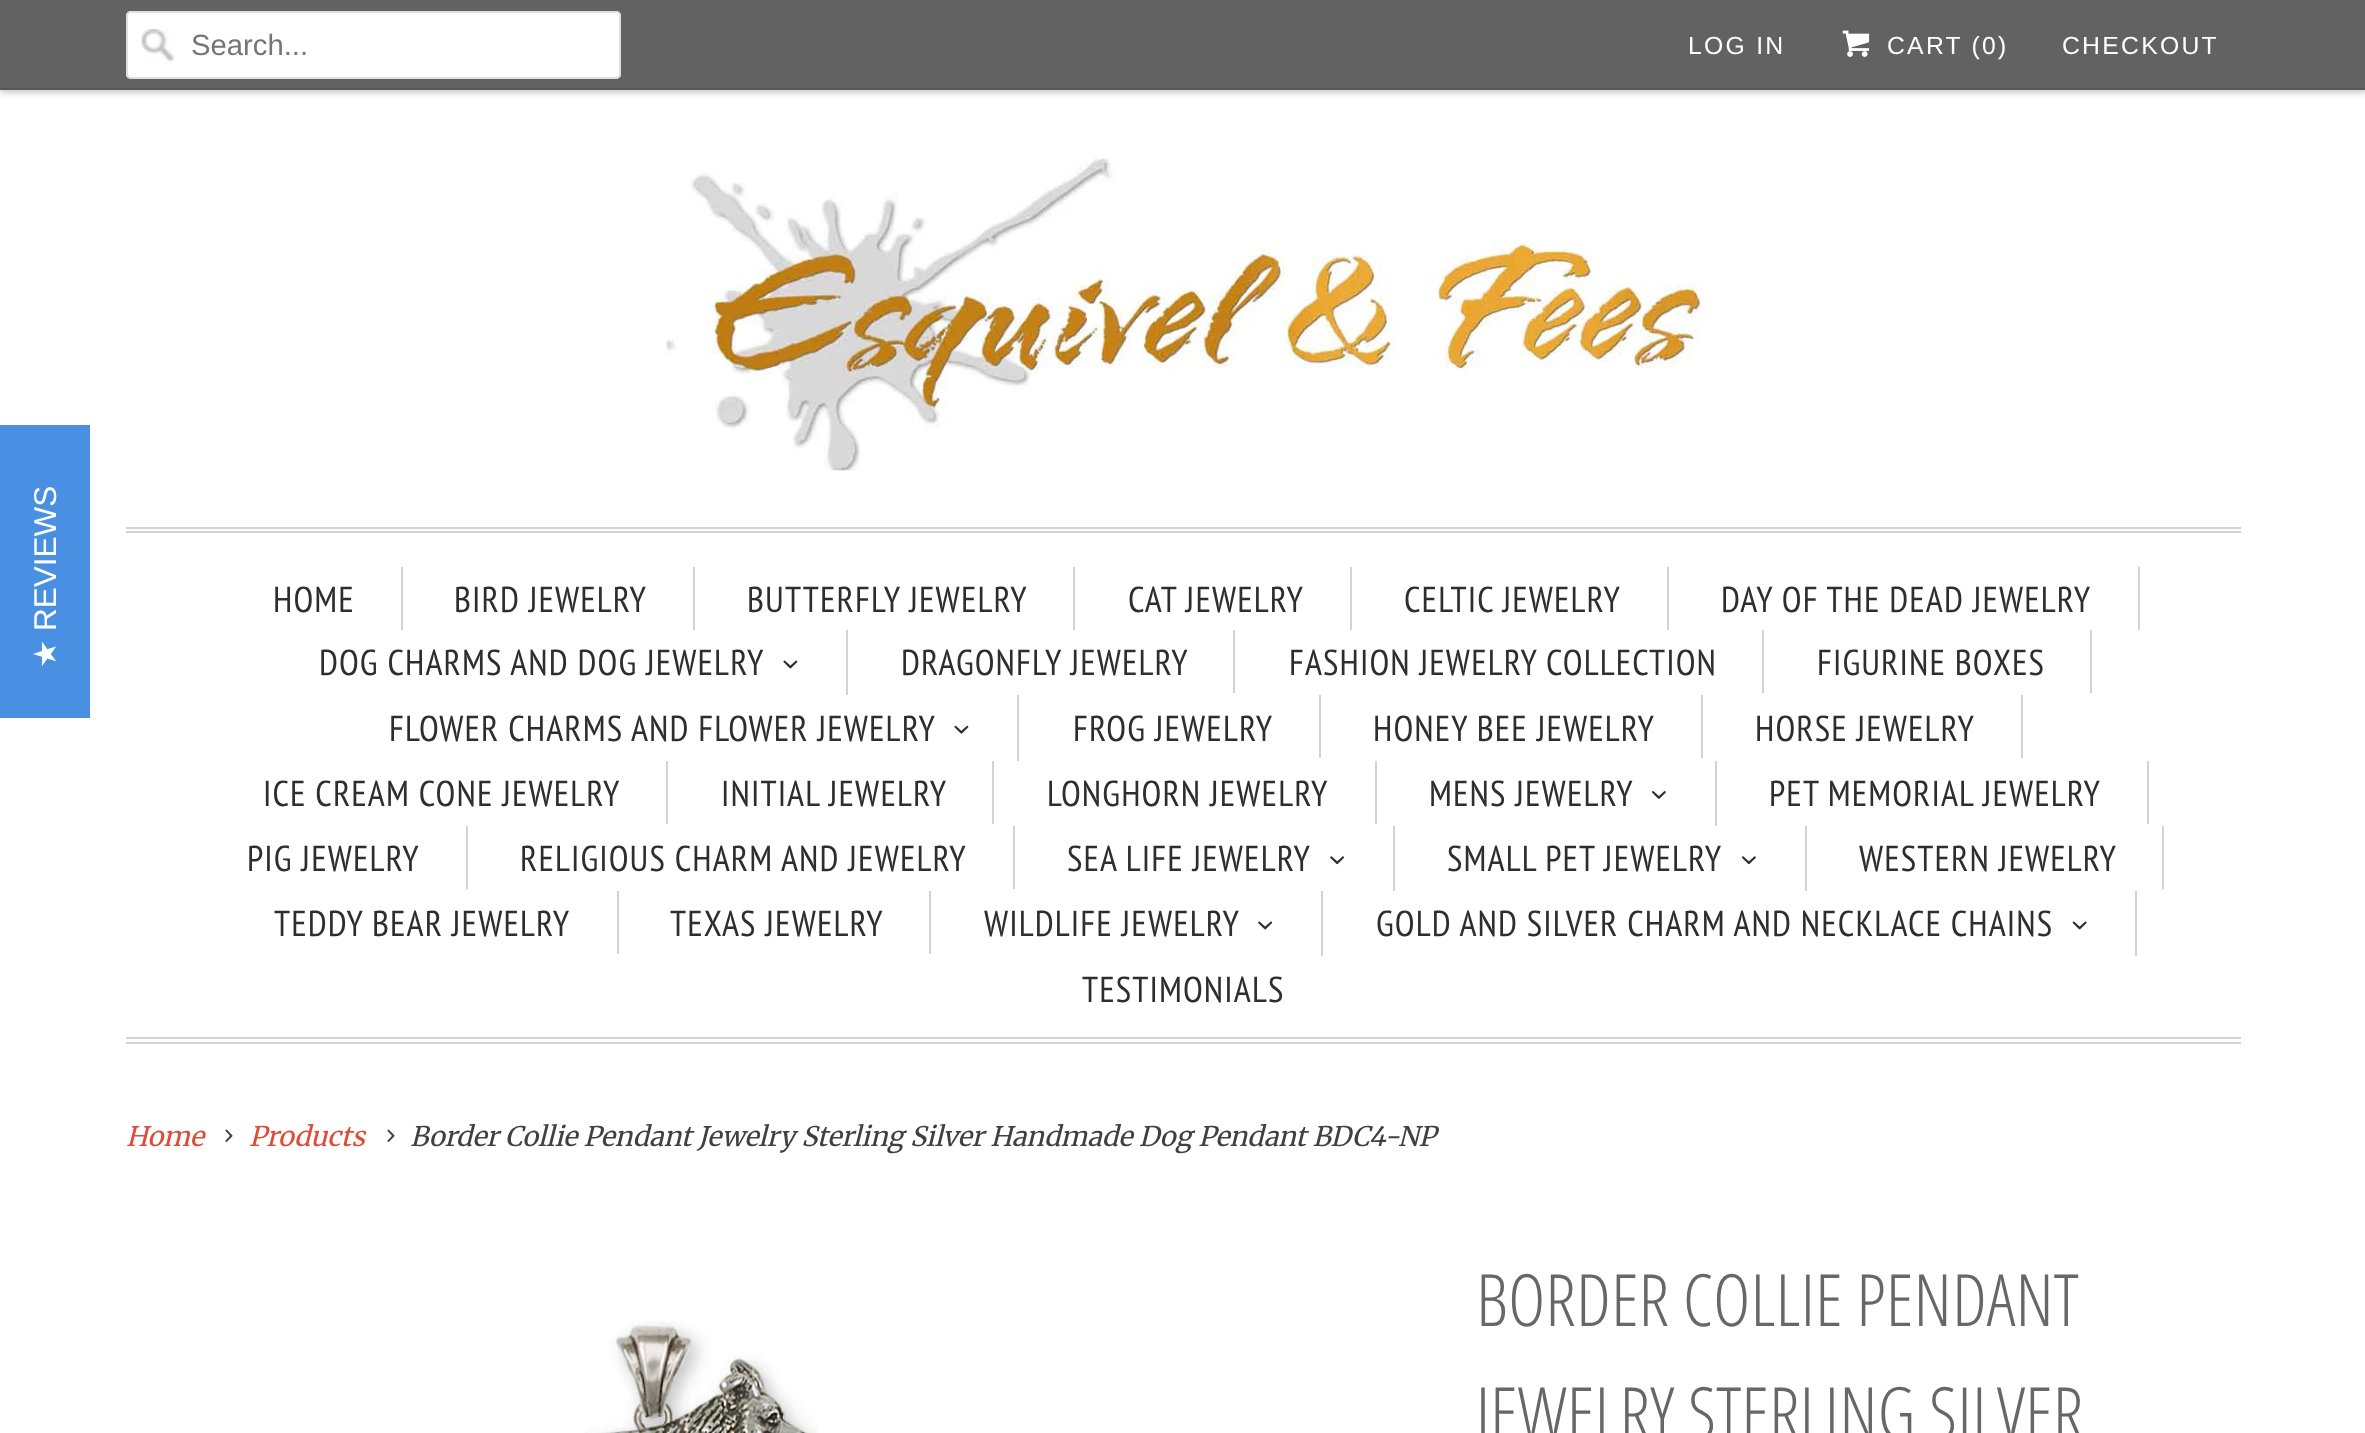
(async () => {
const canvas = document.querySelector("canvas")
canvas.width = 2365
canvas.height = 1433
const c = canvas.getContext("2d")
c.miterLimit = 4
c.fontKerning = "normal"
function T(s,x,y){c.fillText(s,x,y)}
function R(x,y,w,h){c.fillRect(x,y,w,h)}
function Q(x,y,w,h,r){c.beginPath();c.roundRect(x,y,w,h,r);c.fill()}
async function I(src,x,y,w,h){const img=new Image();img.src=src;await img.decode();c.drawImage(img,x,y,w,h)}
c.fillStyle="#fff"
R(0,0,2365,1433)
c.fillStyle="#00000040"
c.filter="blur(3.5px)"
c.beginPath()
c.rect(0,2,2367,90)
c.fill()
c.filter="none"
c.fillStyle="#626262"
R(0,0,2365,88)
c.fillStyle="#585858"
R(0,88,2365,2)
c.fillStyle="#fff"
Q(126,11,495,68,5)
await I("1.png",141,29,33,32)
c.beginPath()
c.roundRect(127,12,493,66,4)
c.strokeStyle="#dfdfdf"
c.lineWidth=2
c.stroke()
c.font="29.25px Liberation Sans"
c.fillStyle="#757575"
T("Search...",191,55)
c.letterSpacing="2.25px"
c.font="24.75px Liberation Sans"
c.fillStyle="#fff"
T("LOG IN",1688,54)
await I("2.png",1842,30,28,27)
T("CART (0)",1887,54)
T("CHECKOUT",2062,54)
c.fillStyle="#4a90e2"
R(0,425,90,293)
c.letterSpacing="0px"
c.font="31.5px Liberation Sans"
c.fillStyle="#fff"
c.save()
c.translate(56,631)
c.rotate(-90 * Math.PI / 180)
c.fillText("REVIEWS",0,0)
c.restore()
c.font="31.5px DejaVu Sans"
c.save()
c.translate(56,668)
c.rotate(-90 * Math.PI / 180)
c.fillText("★",0,0)
c.restore()
await I("3.png",666,158,1035,313)
c.fillStyle="#d3d3d3"
R(126,527,2115,2)
R(126,531,2115,2)
R(126,1037,2115,2)
R(126,1042,2115,2)
R(401,567,2,63)
c.letterSpacing="1.1px"
c.font="36px PT Sans Narrow"
c.fillStyle="#2e2e2e"
T("HOME",273,612)
c.fillStyle="#d3d3d3"
R(693,567,2,63)
c.fillStyle="#2e2e2e"
T("BIRD JEWELRY",454,612)
c.fillStyle="#d3d3d3"
R(1073,567,2,63)
c.fillStyle="#2e2e2e"
T("BUTTERFLY JEWELRY",747,612)
c.fillStyle="#d3d3d3"
R(1350,567,2,63)
c.fillStyle="#2e2e2e"
T("CAT JEWELRY",1128,612)
c.fillStyle="#d3d3d3"
R(1667,567,2,63)
c.fillStyle="#2e2e2e"
T("CELTIC JEWELRY",1404,612)
c.fillStyle="#d3d3d3"
R(2138,567,2,63)
c.fillStyle="#2e2e2e"
T("DAY OF THE DEAD JEWELRY",1721,612)
c.fillStyle="#d3d3d3"
R(846,630,2,65)
c.fillStyle="#2e2e2e"
T("DOG CHARMS AND DOG JEWELRY",319,675)
await I("4.png",783,660,15,9)
c.fillStyle="#d3d3d3"
R(1233,630,2,63)
c.fillStyle="#2e2e2e"
T("DRAGONFLY JEWELRY",901,675)
c.fillStyle="#d3d3d3"
R(1762,630,2,63)
c.fillStyle="#2e2e2e"
T("FASHION JEWELRY COLLECTION",1289,675)
c.fillStyle="#d3d3d3"
R(2090,630,2,63)
c.fillStyle="#2e2e2e"
T("FIGURINE BOXES",1817,675)
c.fillStyle="#d3d3d3"
R(1017,695,2,66)
c.fillStyle="#2e2e2e"
T("FLOWER CHARMS AND FLOWER JEWELRY",389,741)
await I("5.png",954,725,15,9)
c.fillStyle="#d3d3d3"
R(1319,695,2,63)
c.fillStyle="#2e2e2e"
T("FROG JEWELRY",1073,741)
c.fillStyle="#d3d3d3"
R(1701,695,2,63)
c.fillStyle="#2e2e2e"
T("HONEY BEE JEWELRY",1373,741)
c.fillStyle="#d3d3d3"
R(2021,695,2,63)
c.fillStyle="#2e2e2e"
T("HORSE JEWELRY",1755,741)
c.fillStyle="#d3d3d3"
R(666,761,2,63)
c.fillStyle="#2e2e2e"
T("ICE CREAM CONE JEWELRY",263,806)
c.fillStyle="#d3d3d3"
R(992,761,2,63)
c.fillStyle="#2e2e2e"
T("INITIAL JEWELRY",721,806)
c.fillStyle="#d3d3d3"
R(1375,761,2,63)
c.fillStyle="#2e2e2e"
T("LONGHORN JEWELRY",1047,806)
c.fillStyle="#d3d3d3"
R(1715,761,2,65)
c.fillStyle="#2e2e2e"
T("MENS JEWELRY",1429,806)
await I("6.png",1651,791,15,8)
c.fillStyle="#d3d3d3"
R(2147,761,2,63)
c.fillStyle="#2e2e2e"
T("PET MEMORIAL JEWELRY",1769,806)
c.fillStyle="#d3d3d3"
R(466,826,2,63)
c.fillStyle="#2e2e2e"
T("PIG JEWELRY",247,871)
c.fillStyle="#d3d3d3"
R(1013,826,2,63)
c.fillStyle="#2e2e2e"
T("RELIGIOUS CHARM AND JEWELRY",520,871)
c.fillStyle="#d3d3d3"
R(1393,826,2,65)
c.fillStyle="#2e2e2e"
T("SEA LIFE JEWELRY",1067,871)
await I("7.png",1330,856,15,9)
c.fillStyle="#d3d3d3"
R(1805,826,2,65)
c.fillStyle="#2e2e2e"
T("SMALL PET JEWELRY",1447,871)
await I("8.png",1741,856,15,9)
c.fillStyle="#d3d3d3"
R(2162,826,2,63)
c.fillStyle="#2e2e2e"
T("WESTERN JEWELRY",1859,871)
c.fillStyle="#d3d3d3"
R(617,891,2,63)
c.fillStyle="#2e2e2e"
T("TEDDY BEAR JEWELRY",274,936)
c.fillStyle="#d3d3d3"
R(929,891,2,63)
c.fillStyle="#2e2e2e"
T("TEXAS JEWELRY",670,936)
c.fillStyle="#d3d3d3"
R(1321,891,2,65)
c.fillStyle="#2e2e2e"
T("WILDLIFE JEWELRY",984,936)
await I("9.png",1258,921,15,9)
c.fillStyle="#d3d3d3"
R(2135,891,2,65)
c.fillStyle="#2e2e2e"
T("GOLD AND SILVER CHARM AND NECKLACE CHAINS",1376,936)
await I("10.png",2072,921,15,9)
T("TESTIMONIALS",1082,1002)
c.letterSpacing="0px"
c.font="italic 27px Merriweather"
c.fillStyle="#dd4b39"
T("Home",126,1146)
await I("11.png",225,1129,8,13)
T("Products",249,1146)
await I("11.png",387,1129,8,13)
c.fillStyle="#404040"
T("Border Collie Pendant Jewelry Sterling Silver Handmade Dog Pendant BDC4-NP",410,1146)
await I("12.png",584,1321,234,112)
c.font="300 72px Open Sans Condensed"
c.fillStyle="#686666"
T("BORDER COLLIE PENDANT",1476,1326)
T("JEWELRY STERLING SILVER",1476,1439)
})()
